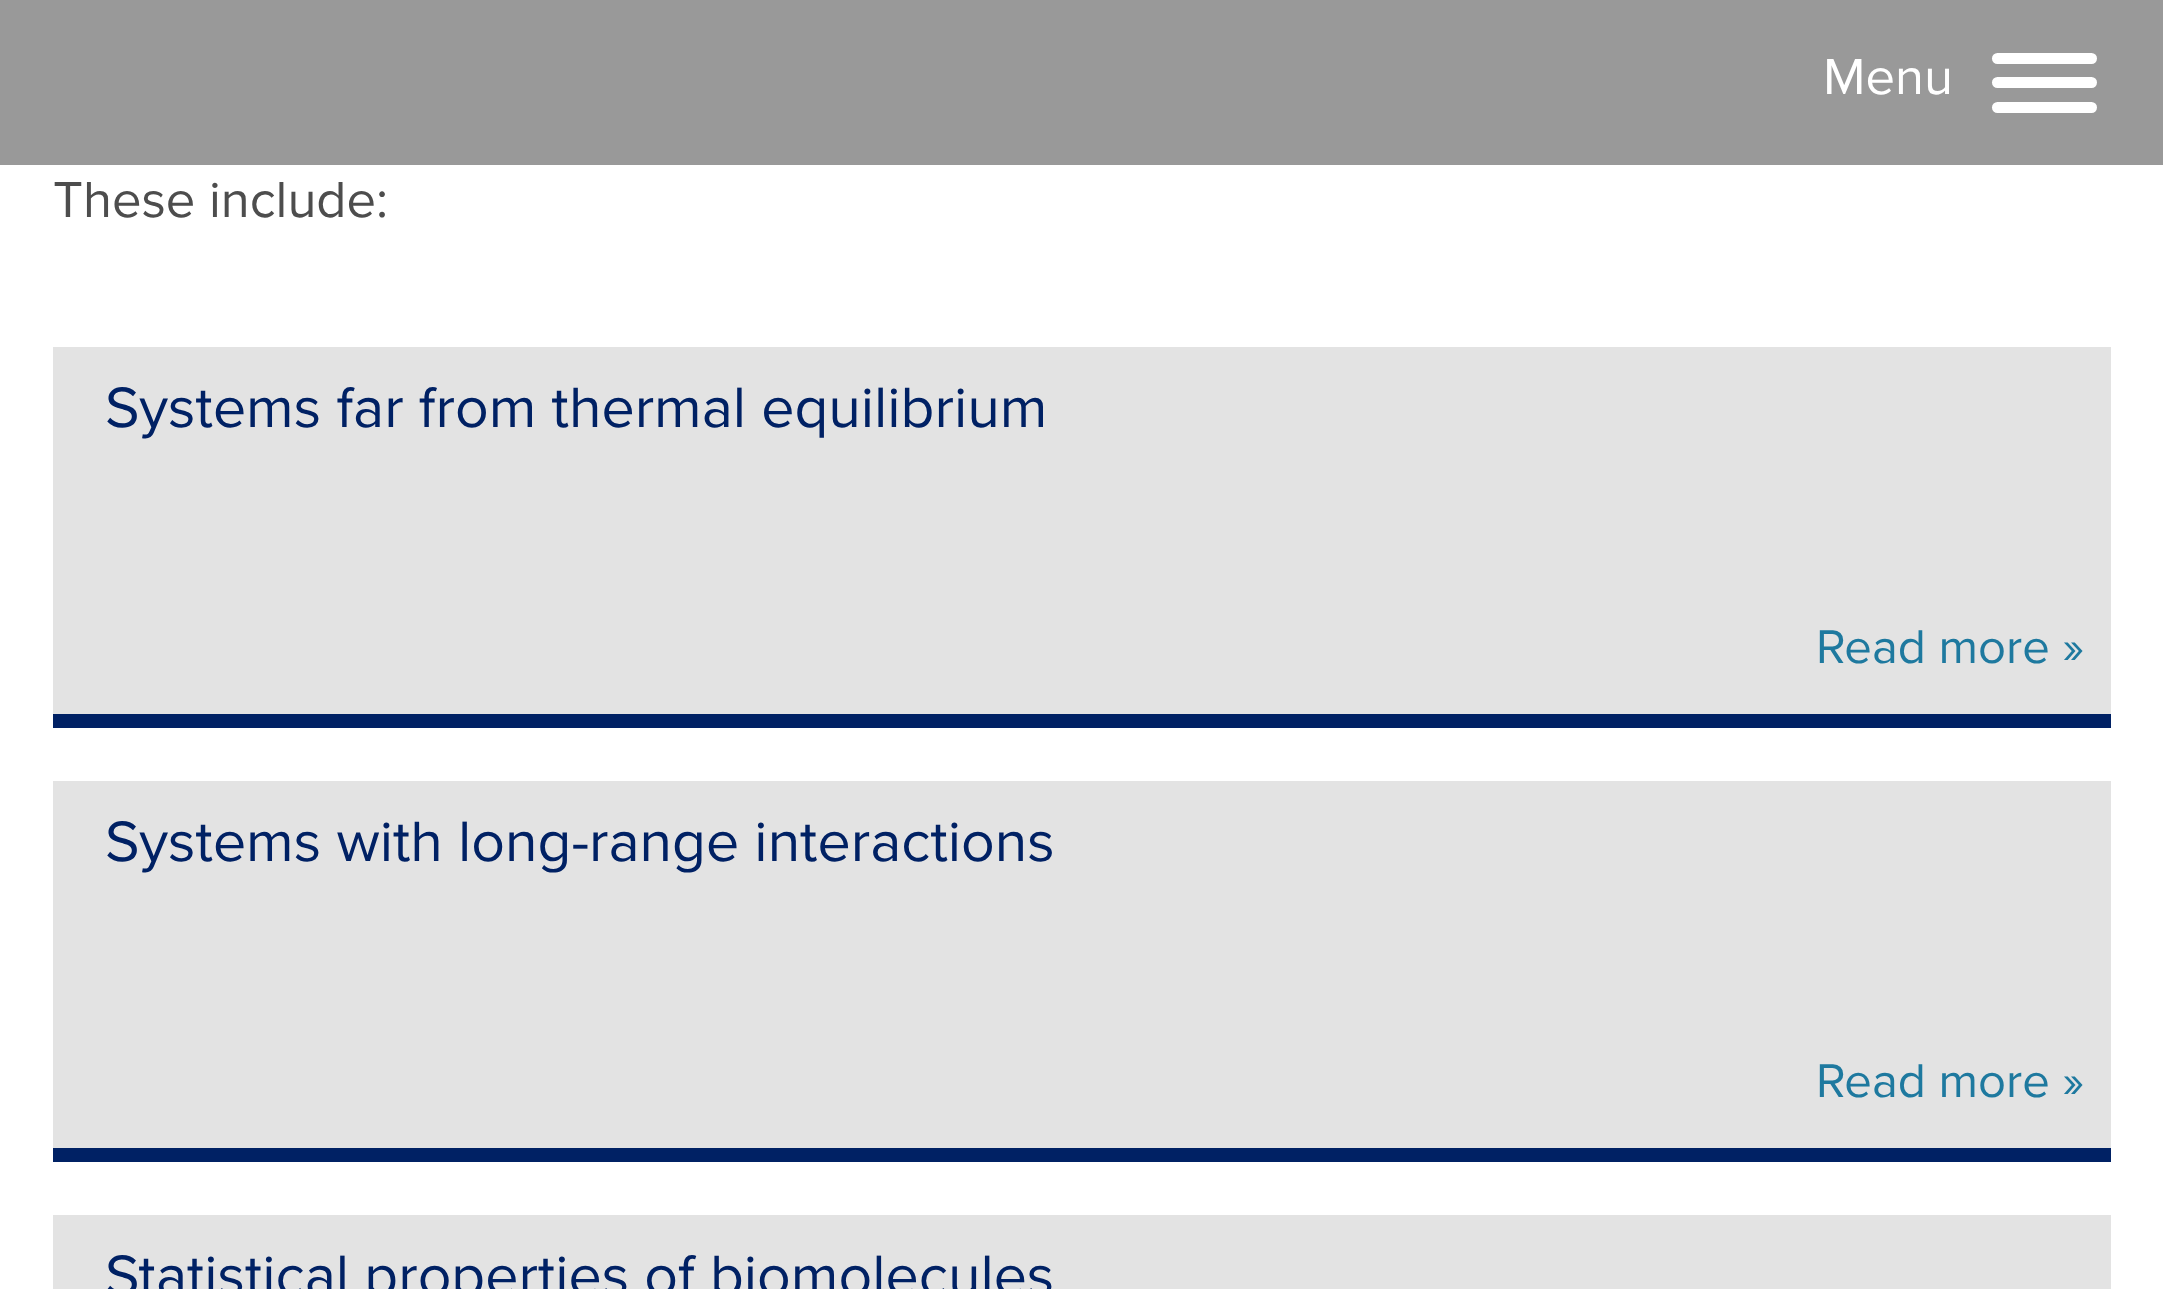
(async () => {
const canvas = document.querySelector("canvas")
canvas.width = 2163
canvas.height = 1289
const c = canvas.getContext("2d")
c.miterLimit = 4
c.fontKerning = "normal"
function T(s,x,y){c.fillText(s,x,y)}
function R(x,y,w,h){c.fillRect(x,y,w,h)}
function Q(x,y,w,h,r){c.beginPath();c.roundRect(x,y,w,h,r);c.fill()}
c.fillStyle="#fff"
R(0,0,2163,1289)
c.fillStyle="#999"
R(0,0,2163,165)
c.font="52.5px Proxima Nova"
c.fillStyle="#fff"
T("Menu",1823,94)
Q(1992,53,105,11,5.5)
Q(1992,77,105,11,5.5)
Q(1992,102,105,11,5.5)
c.fillStyle="#4d4d4d"
T("These include:",53,217)
c.fillStyle="#e3e3e3"
R(53,347,2058,367)
c.fillStyle="#002164"
R(53,714,2058,14)
c.font="59px Proxima Nova"
T("Systems far from thermal equilibrium",105,427)
c.font="49px Proxima Nova"
c.fillStyle="#1e799f"
T("Read more »",1816,663)
c.fillStyle="#e3e3e3"
R(53,781,2058,367)
c.fillStyle="#002164"
R(53,1148,2058,14)
c.font="59px Proxima Nova"
T("Systems with long-range interactions",105,861)
c.font="49px Proxima Nova"
c.fillStyle="#1e799f"
T("Read more »",1816,1097)
c.fillStyle="#e3e3e3"
R(53,1215,2058,74)
c.font="59px Proxima Nova"
c.fillStyle="#002164"
T("Statistical properties of biomolecules",105,1295)
})()
